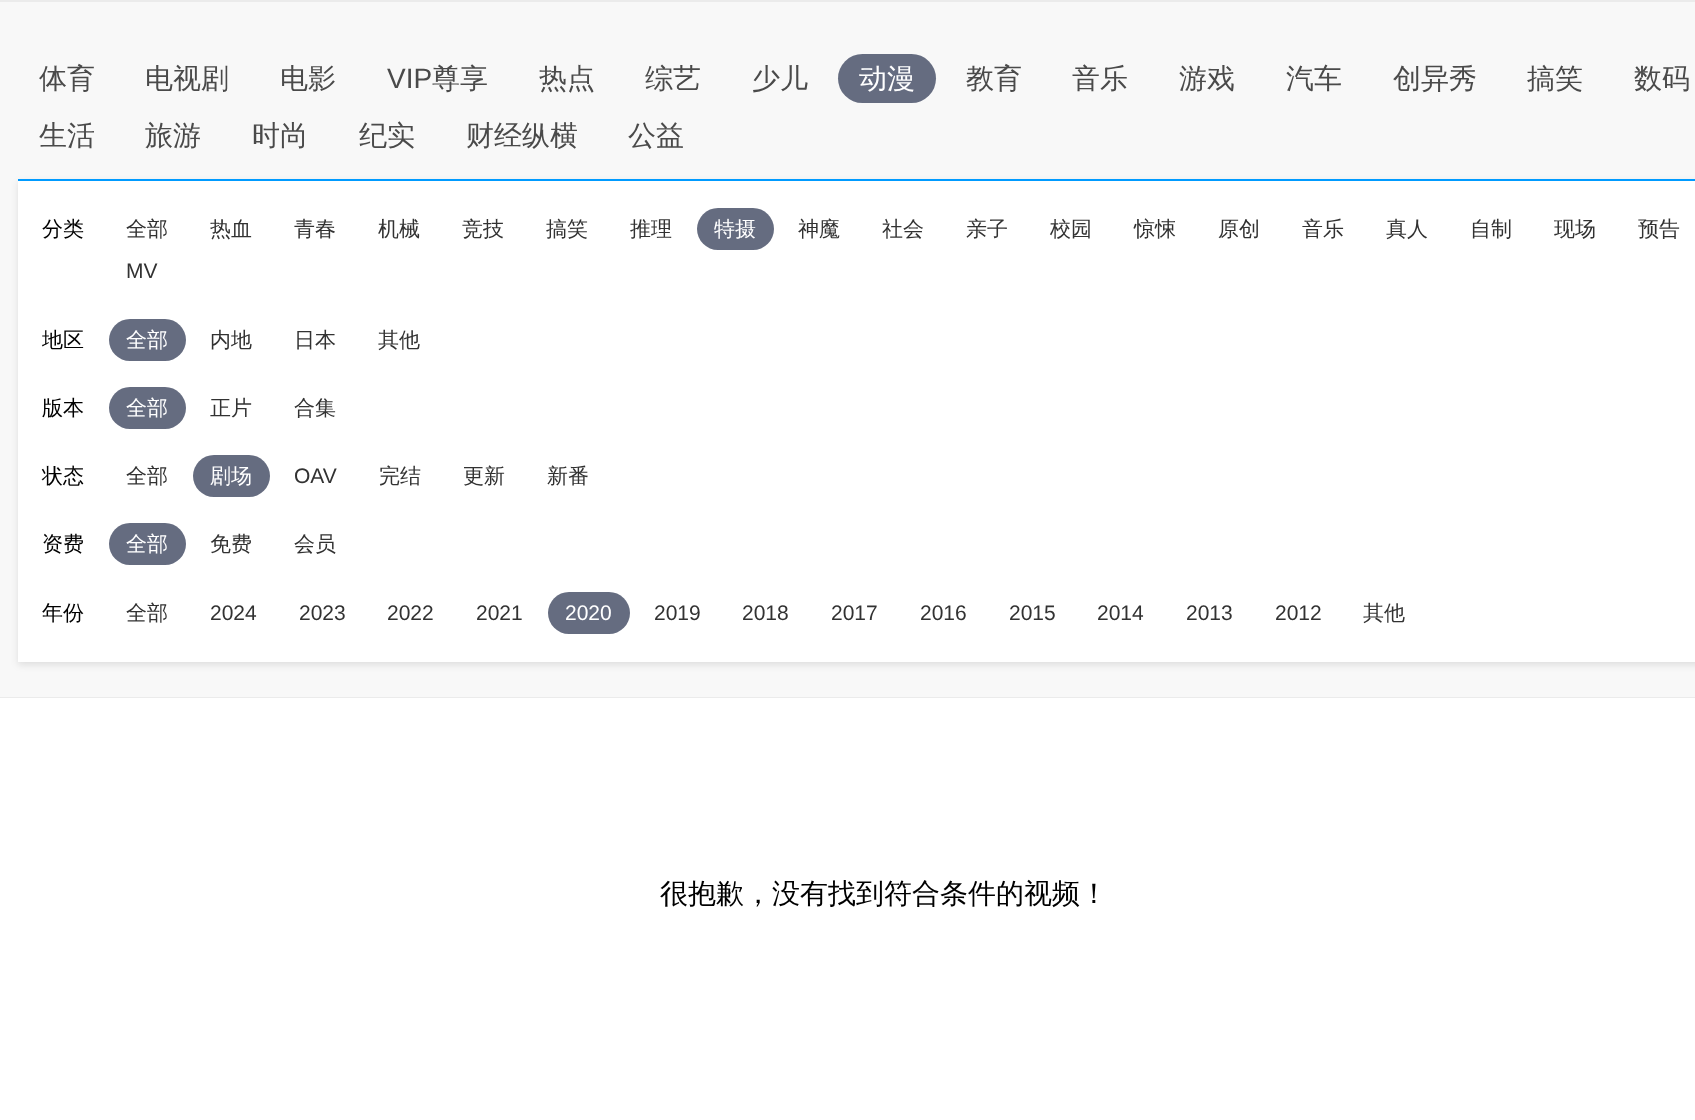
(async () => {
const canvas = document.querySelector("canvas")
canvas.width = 1695
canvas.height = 1120
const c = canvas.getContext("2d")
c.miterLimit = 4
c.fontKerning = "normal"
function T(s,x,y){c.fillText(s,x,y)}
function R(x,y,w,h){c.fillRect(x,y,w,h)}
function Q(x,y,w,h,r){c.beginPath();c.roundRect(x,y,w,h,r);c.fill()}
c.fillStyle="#f8f8f8"
R(0,0,1695,1120)
c.fillStyle="#ebebeb"
R(0,0,1695,2)
R(0,697,1695,1)
c.font="500 28px WenQuanYi Zen Hei"
c.fillStyle="#4a4a4a"
T("体育",39,88)
T("电视剧",145,88)
T("电影",280,88)
c.font="28px Liberation Sans"
T("VIP",387,88)
c.font="500 28px WenQuanYi Zen Hei"
T("尊享",432,88)
T("热点",539,88)
T("综艺",645,88)
T("少儿",752,88)
c.fillStyle="#656c80"
Q(838,54,98,49,24.5)
c.fillStyle="#fff"
T("动漫",859,88)
c.fillStyle="#4a4a4a"
T("教育",966,88)
T("音乐",1072,88)
T("游戏",1179,88)
T("汽车",1286,88)
T("创异秀",1393,88)
T("搞笑",1527,88)
T("数码",1634,88)
T("生活",39,145)
T("旅游",145,145)
T("时尚",252,145)
T("纪实",359,145)
T("财经纵横",466,145)
T("公益",628,145)
c.fillStyle="#0000001a"
c.filter="blur(3.5px)"
c.beginPath()
c.rect(18,182,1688,483)
c.fill()
c.filter="none"
c.fillStyle="#fff"
R(18,181,1677,481)
c.fillStyle="#009bff"
R(18,179,1677,2)
c.font="500 21px WenQuanYi Zen Hei"
c.fillStyle="#000"
T("分类",42,236)
c.fillStyle="#323232"
T("全部",126,236)
T("热血",210,236)
T("青春",294,236)
T("机械",378,236)
T("竞技",462,236)
T("搞笑",546,236)
T("推理",630,236)
c.fillStyle="#656c80"
Q(697,208,77,42,21)
c.fillStyle="#fff"
T("特摄",714,236)
c.fillStyle="#323232"
T("神魔",798,236)
T("社会",882,236)
T("亲子",966,236)
T("校园",1050,236)
T("惊悚",1134,236)
T("原创",1218,236)
T("音乐",1302,236)
T("真人",1386,236)
T("自制",1470,236)
T("现场",1554,236)
T("预告",1638,236)
c.font="21px Liberation Sans"
T("MV",126,278)
c.font="500 21px WenQuanYi Zen Hei"
c.fillStyle="#000"
T("地区",42,347)
c.fillStyle="#656c80"
Q(109,319,77,42,21)
c.fillStyle="#fff"
T("全部",126,347)
c.fillStyle="#323232"
T("内地",210,347)
T("日本",294,347)
T("其他",378,347)
c.fillStyle="#000"
T("版本",42,415)
c.fillStyle="#656c80"
Q(109,387,77,42,21)
c.fillStyle="#fff"
T("全部",126,415)
c.fillStyle="#323232"
T("正片",210,415)
T("合集",294,415)
c.fillStyle="#000"
T("状态",42,483)
c.fillStyle="#323232"
T("全部",126,483)
c.fillStyle="#656c80"
Q(193,455,77,42,21)
c.fillStyle="#fff"
T("剧场",210,483)
c.font="21px Liberation Sans"
c.fillStyle="#323232"
T("OAV",294,483)
c.font="500 21px WenQuanYi Zen Hei"
T("完结",379,483)
T("更新",463,483)
T("新番",547,483)
c.fillStyle="#000"
T("资费",42,551)
c.fillStyle="#656c80"
Q(109,523,77,42,21)
c.fillStyle="#fff"
T("全部",126,551)
c.fillStyle="#323232"
T("免费",210,551)
T("会员",294,551)
c.fillStyle="#000"
T("年份",42,620)
c.fillStyle="#323232"
T("全部",126,620)
c.font="21px Liberation Sans"
T("2024",210,620)
T("2023",299,620)
T("2022",387,620)
T("2021",476,620)
c.fillStyle="#656c80"
Q(548,592,82,42,21)
c.fillStyle="#fff"
T("2020",565,620)
c.fillStyle="#323232"
T("2019",654,620)
T("2018",742,620)
T("2017",831,620)
T("2016",920,620)
T("2015",1009,620)
T("2014",1097,620)
T("2013",1186,620)
T("2012",1275,620)
c.font="500 21px WenQuanYi Zen Hei"
T("其他",1363,620)
c.fillStyle="#fff"
R(0,698,1695,422)
c.font="500 28px WenQuanYi Zen Hei"
c.fillStyle="#000"
T("很抱歉，没有找到符合条件的视频！",660,903)
})()
